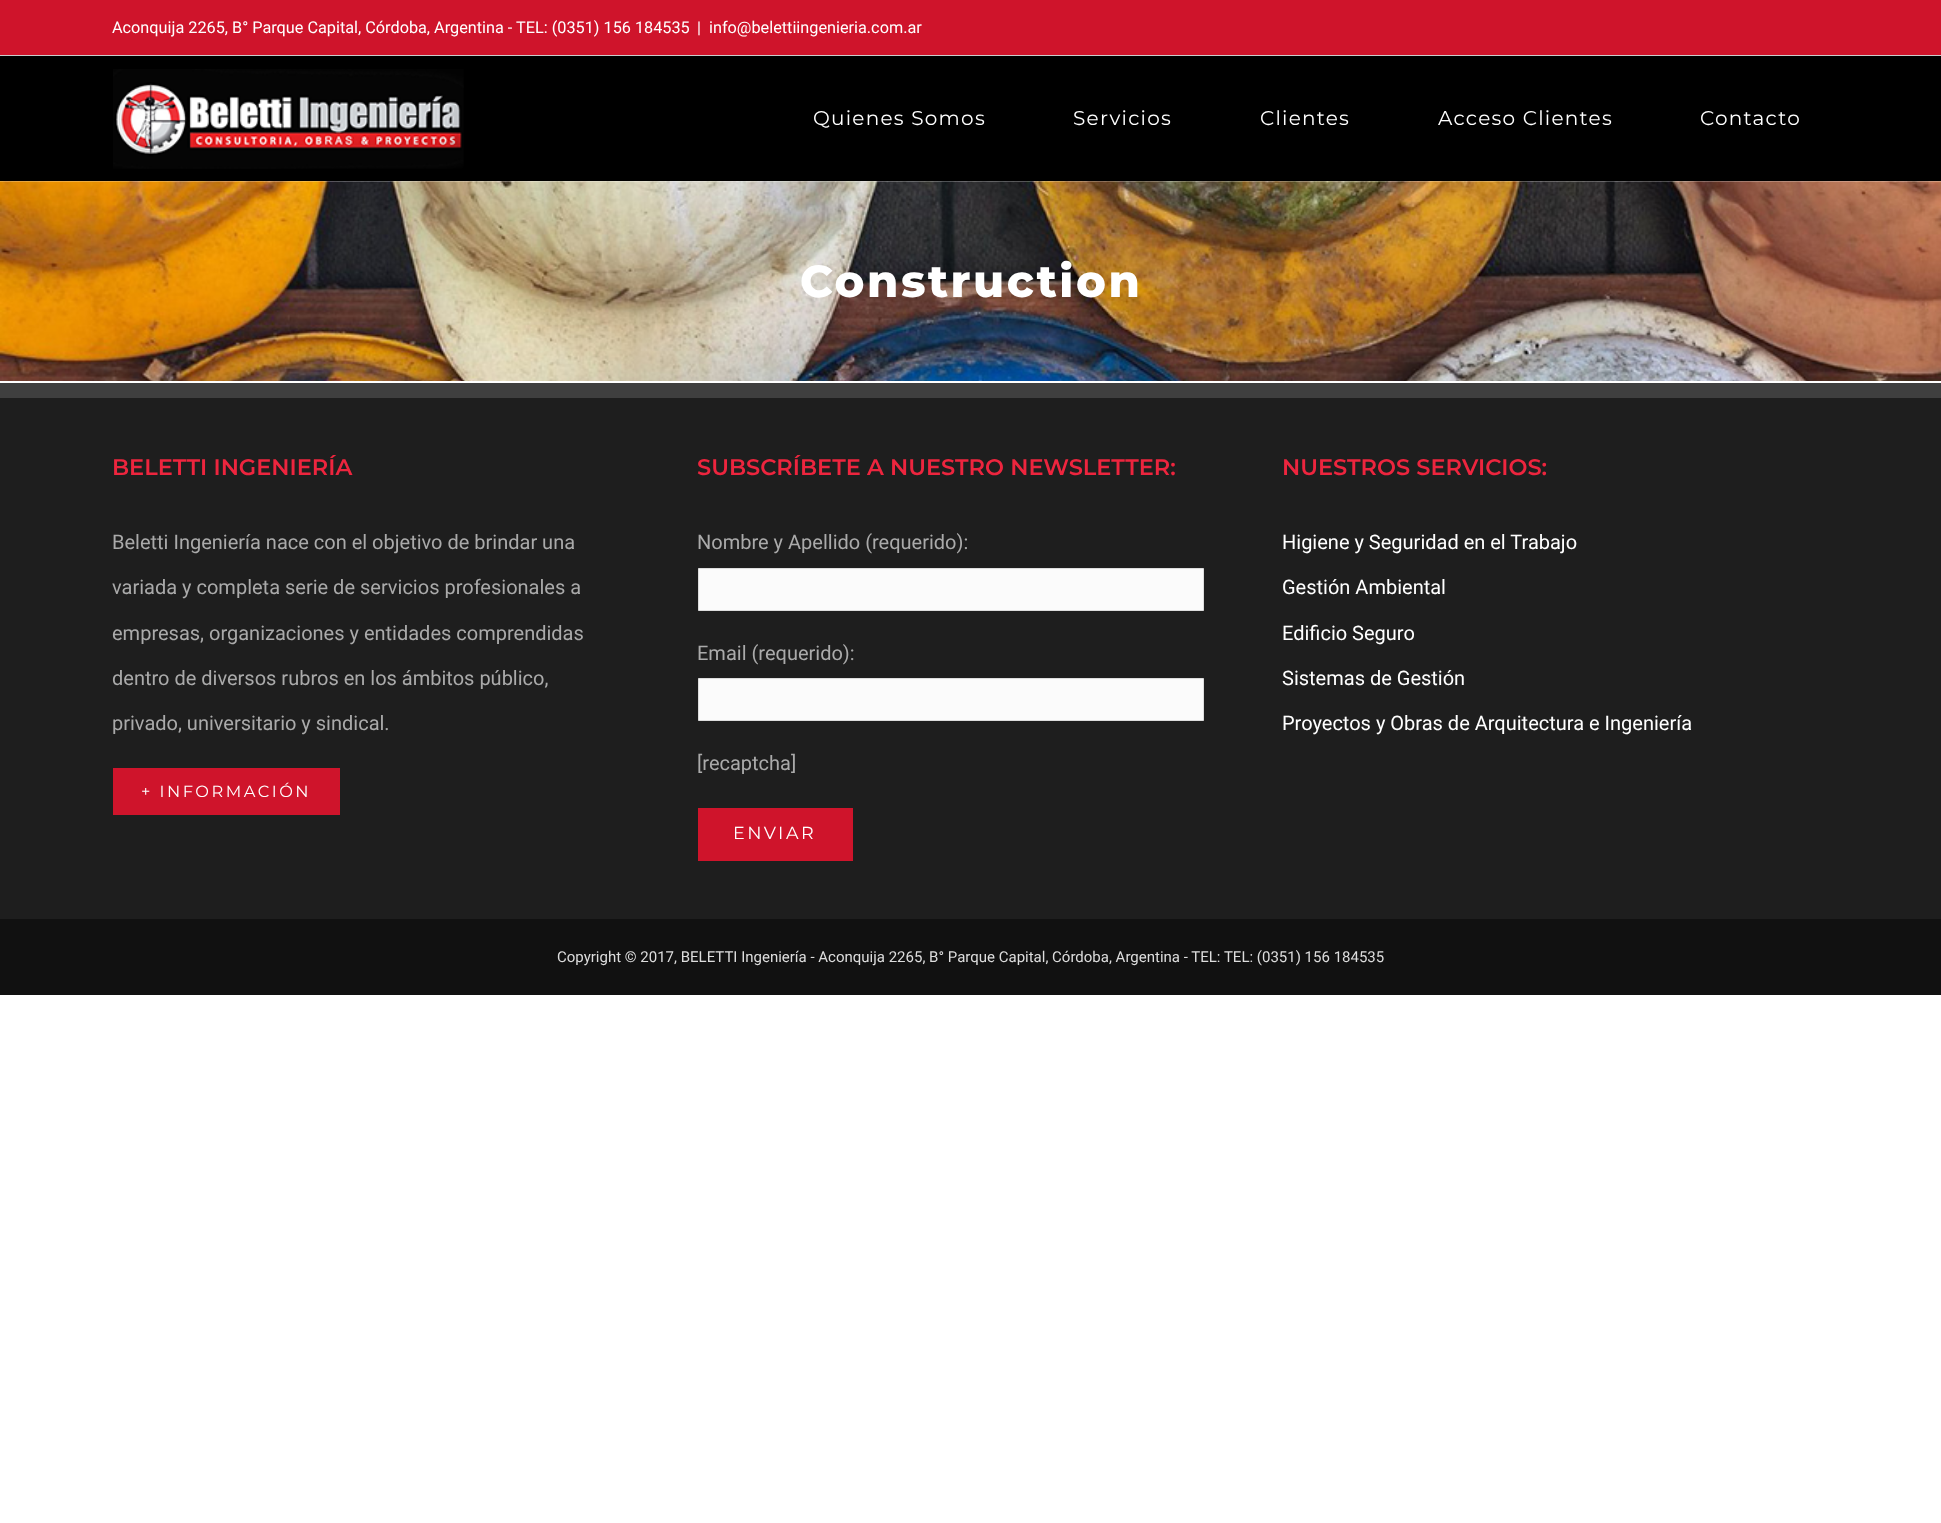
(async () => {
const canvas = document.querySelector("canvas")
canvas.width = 1941
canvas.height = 1523
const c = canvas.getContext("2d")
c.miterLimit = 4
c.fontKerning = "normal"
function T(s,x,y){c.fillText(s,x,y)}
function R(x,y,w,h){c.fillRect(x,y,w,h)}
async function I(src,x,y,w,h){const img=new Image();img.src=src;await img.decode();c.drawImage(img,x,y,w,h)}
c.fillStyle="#fff"
R(0,0,1941,1523)
c.fillStyle="#000"
R(0,56,1941,125)
c.fillStyle="#cf142b"
R(0,0,1941,55)
c.fillStyle="#ccc"
R(0,55,1941,1)
c.font="16.25px Roboto"
c.fillStyle="#fff"
T("Aconquija 2265, B° Parque Capital, Córdoba, Argentina - TEL: (0351) 156 184535",112,33)
T("|",697,33)
T("info@belettiingenieria.com.ar",709,33)
await I("1.png",113,69,351,100)
c.letterSpacing="1.25px"
c.font="20px Montserrat"
T("Quienes Somos",813,125)
T("Servicios",1073,125)
T("Clientes",1260,125)
T("Acceso Clientes",1438,125)
T("Contacto",1700,125)
await I("2.png",0,181,1941,200)
c.letterSpacing="2.5px"
c.font="800 45px Montserrat"
T("Construction",800,297)
c.fillStyle="#1e1e1e"
R(0,398,1941,521)
c.fillStyle="#3f3f3f"
R(0,383,1941,15)
c.letterSpacing="0px"
c.font="600 22.5px Montserrat"
c.fillStyle="#ed253e"
T("BELETTI INGENIERÍA",112,475)
c.font="20px Roboto"
c.fillStyle="#aaa"
T("Beletti Ingeniería nace con el objetivo de brindar una",112,549)
T("variada y completa serie de servicios profesionales a",112,594)
T("empresas, organizaciones y entidades comprendidas",112,640)
T("dentro de diversos rubros en los ámbitos público,",112,685)
T("privado, universitario y sindical.",112,730)
c.fillStyle="#cf142b"
R(113,768,227,47)
c.letterSpacing="2.5px"
c.font="16.25px Montserrat"
c.fillStyle="#fff"
T("+ INFORMACIÓN",141,797)
c.letterSpacing="0px"
c.font="600 22.5px Montserrat"
c.fillStyle="#ed253e"
T("SUBSCRÍBETE A NUESTRO NEWSLETTER:",697,475)
c.font="20px Roboto"
c.fillStyle="#aaa"
T("Nombre y Apellido (requerido):",697,549)
c.fillStyle="#fbfbfb"
c.beginPath()
c.rect(698.5,568.5,505,42)
c.fill()
c.strokeStyle="#ddd"
c.stroke()
c.fillStyle="#aaa"
T("Email (requerido):",697,660)
c.fillStyle="#fbfbfb"
c.beginPath()
c.rect(698.5,678.5,505,42)
c.fill()
c.stroke()
c.fillStyle="#aaa"
T("[recaptcha]",697,770)
c.fillStyle="#cf142b"
R(698,808,155,53)
c.letterSpacing="2.5px"
c.font="17.5px Montserrat"
c.fillStyle="#fff"
T("ENVIAR",733,839)
c.letterSpacing="0px"
c.font="600 22.5px Montserrat"
c.fillStyle="#ed253e"
T("NUESTROS SERVICIOS:",1282,475)
c.font="20px Roboto"
c.fillStyle="#fff"
T("Higiene y Seguridad en el Trabajo",1282,549)
T("Gestión Ambiental",1282,594)
T("Edificio Seguro",1282,640)
T("Sistemas de Gestión",1282,685)
T("Proyectos y Obras de Arquitectura e Ingeniería",1282,730)
c.fillStyle="#111"
R(0,919,1941,76)
c.font="15px Roboto"
c.fillStyle="#ddd"
T("Copyright © 2017, BELETTI Ingeniería - Aconquija 2265, B° Parque Capital, Córdoba, Argentina - TEL: TEL: (0351) 156 184535",557,962)
})()
